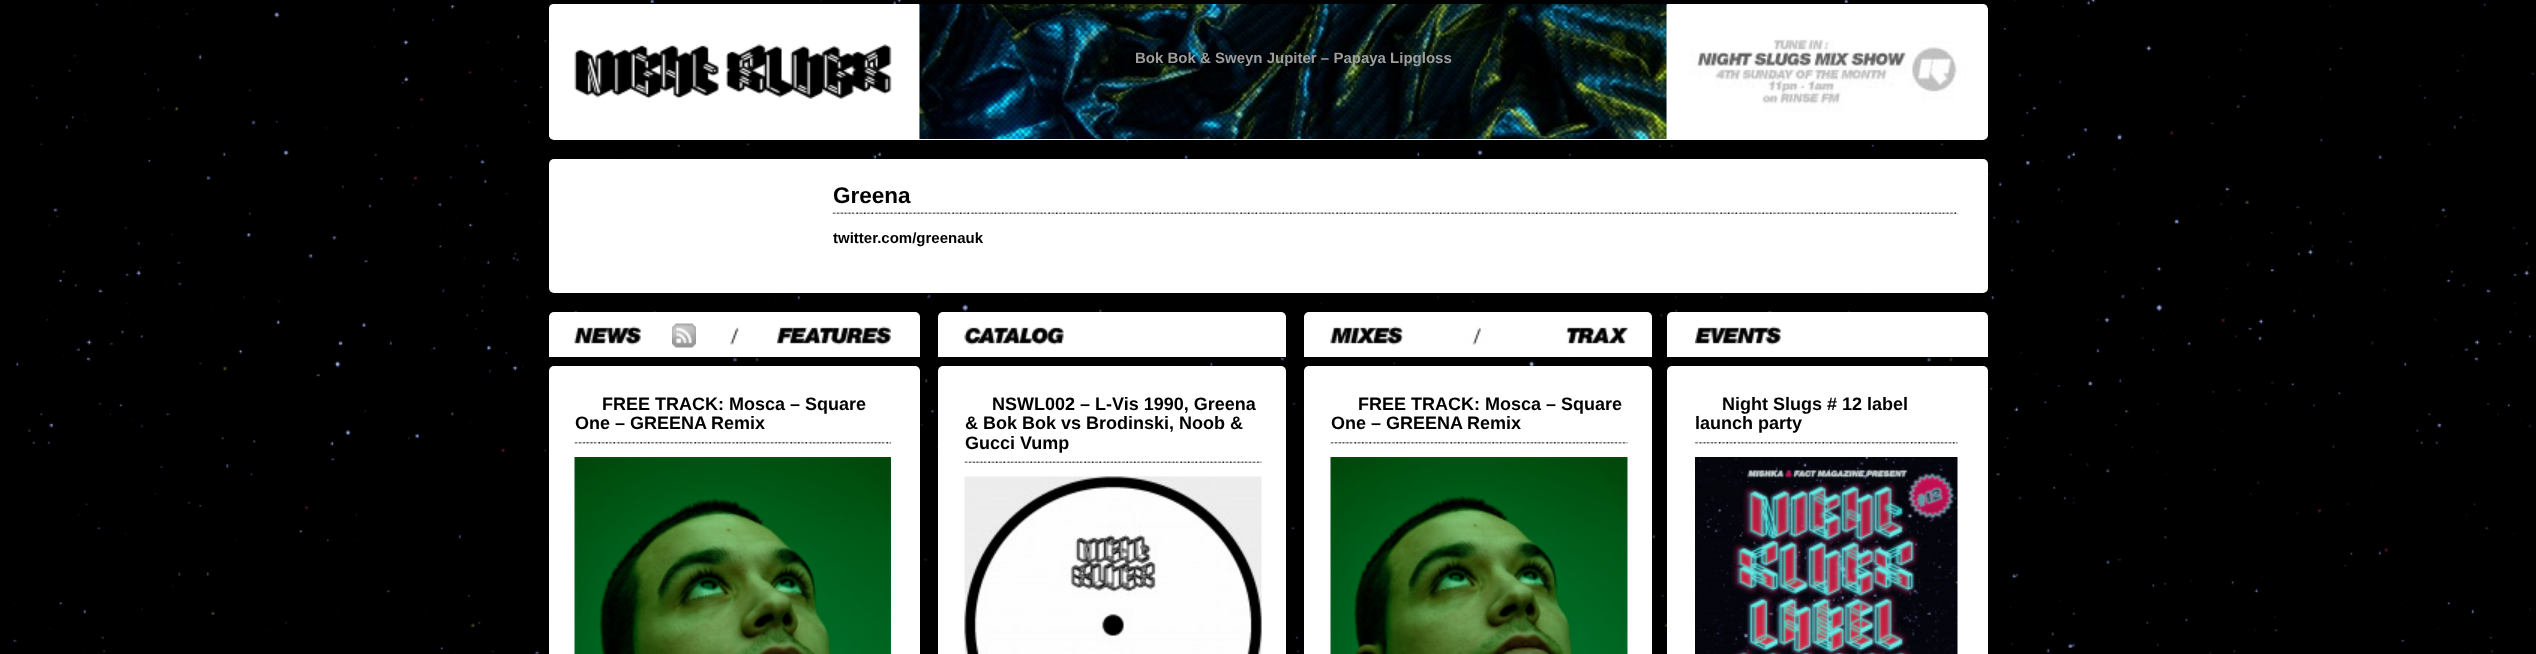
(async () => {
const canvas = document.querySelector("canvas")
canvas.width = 2536
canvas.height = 654
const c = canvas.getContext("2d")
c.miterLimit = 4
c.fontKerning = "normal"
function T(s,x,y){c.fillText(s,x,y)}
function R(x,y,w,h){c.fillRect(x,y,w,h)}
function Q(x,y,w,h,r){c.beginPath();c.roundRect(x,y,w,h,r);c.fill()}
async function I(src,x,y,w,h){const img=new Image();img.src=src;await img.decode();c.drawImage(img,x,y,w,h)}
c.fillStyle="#000"
R(0,0,2536,654)
await I("1.png",0,0,2535,654)
c.fillStyle="#00000033"
c.filter="blur(1px)"
c.beginPath()
c.rect(551,8,1438,135)
c.fill()
c.filter="none"
c.fillStyle="#fff"
c.beginPath()
c.roundRect(549,5,371,135,[5,0,0,5])
c.fill()
await I("2.png",548,4,372,134)
R(920,5,747,135)
c.beginPath()
c.roundRect(1667,5,321,135,[0,5,5,0])
c.fill()
await I("5.png",1666,4,322,133)
await I("3.png",919,4,748,135)
await I("4.png",919,4,748,135)
c.font="bold 15px Liberation Sans"
c.fillStyle="#9e9e9e"
T("Bok Bok & Sweyn Jupiter – Papaya Lipgloss",1135,63)
c.fillStyle="#00000033"
c.filter="blur(1px)"
c.beginPath()
c.roundRect(551,162,1438,134,5)
c.fill()
c.filter="none"
c.fillStyle="#fff"
Q(549,159,1439,134,5)
c.font="bold 22.5px Liberation Sans"
c.fillStyle="#000"
T("Greena",833,203)
await I("6.png",832,212,1126,2)
c.font="bold 15px Liberation Sans"
T("twitter.com/greenauk",833,243)
c.fillStyle="#00000033"
c.filter="blur(1px)"
c.beginPath()
c.roundRect(551,315,370,45,5)
c.fill()
c.filter="none"
c.fillStyle="#fff"
c.beginPath()
c.roundRect(549,312,371,45,[5,5,0,0])
c.fill()
await I("7.png",574,326,67,19)
await I("8.png",672,323,24,25)
await I("9.png",730,327,9,18)
await I("10.png",777,326,114,19)
c.fillStyle="#00000033"
c.filter="blur(1px)"
c.beginPath()
c.roundRect(551,369,370,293,5)
c.fill()
c.filter="none"
c.fillStyle="#fff"
Q(549,366,371,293,5)
c.font="bold 18px Liberation Sans"
c.fillStyle="#000"
T("FREE TRACK: Mosca – Square",602,410)
T("One – GREENA",575,429)
T("Remix",711,429)
await I("11.png",574,442,317,2)
await I("12.png",574,457,317,197)
c.fillStyle="#00000033"
c.filter="blur(1px)"
c.beginPath()
c.roundRect(939,315,348,45,5)
c.fill()
c.filter="none"
c.fillStyle="#fff"
c.beginPath()
c.roundRect(938,312,348,45,[5,5,0,0])
c.fill()
await I("13.png",964,327,100,18)
Q(938,366,348,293,5)
c.fillStyle="#000"
T("NSWL002 – L-Vis 1990, Greena",992,410)
T("& Bok Bok vs Brodinski, Noob &",965,429)
T("Gucci Vump",965,449)
await I("14.png",964,461,298,2)
await I("15.png",964,476,298,178)
c.fillStyle="#fff"
c.beginPath()
c.roundRect(1304,312,348,45,[5,5,0,0])
c.fill()
await I("16.png",1330,326,73,19)
await I("17.png",1402,327,166,18)
await I("18.png",1567,327,61,17)
c.fillStyle="#00000033"
c.filter="blur(1px)"
c.beginPath()
c.roundRect(1305,369,348,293,5)
c.fill()
c.filter="none"
c.fillStyle="#fff"
Q(1304,366,348,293,5)
c.fillStyle="#000"
T("FREE TRACK: Mosca – Square",1358,410)
T("One – GREENA",1331,429)
T("Remix",1467,429)
await I("19.png",1330,442,298,2)
await I("20.png",1330,457,298,197)
c.fillStyle="#00000033"
c.filter="blur(1px)"
c.beginPath()
c.roundRect(1668,315,321,45,5)
c.fill()
c.filter="none"
c.fillStyle="#fff"
c.beginPath()
c.roundRect(1667,312,321,45,[5,5,0,0])
c.fill()
await I("21.png",1695,326,86,19)
Q(1667,366,321,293,5)
c.fillStyle="#000"
T("Night Slugs # 12 label",1722,410)
T("launch party",1695,429)
await I("22.png",1695,442,263,2)
await I("23.png",1695,457,263,197)
})()
